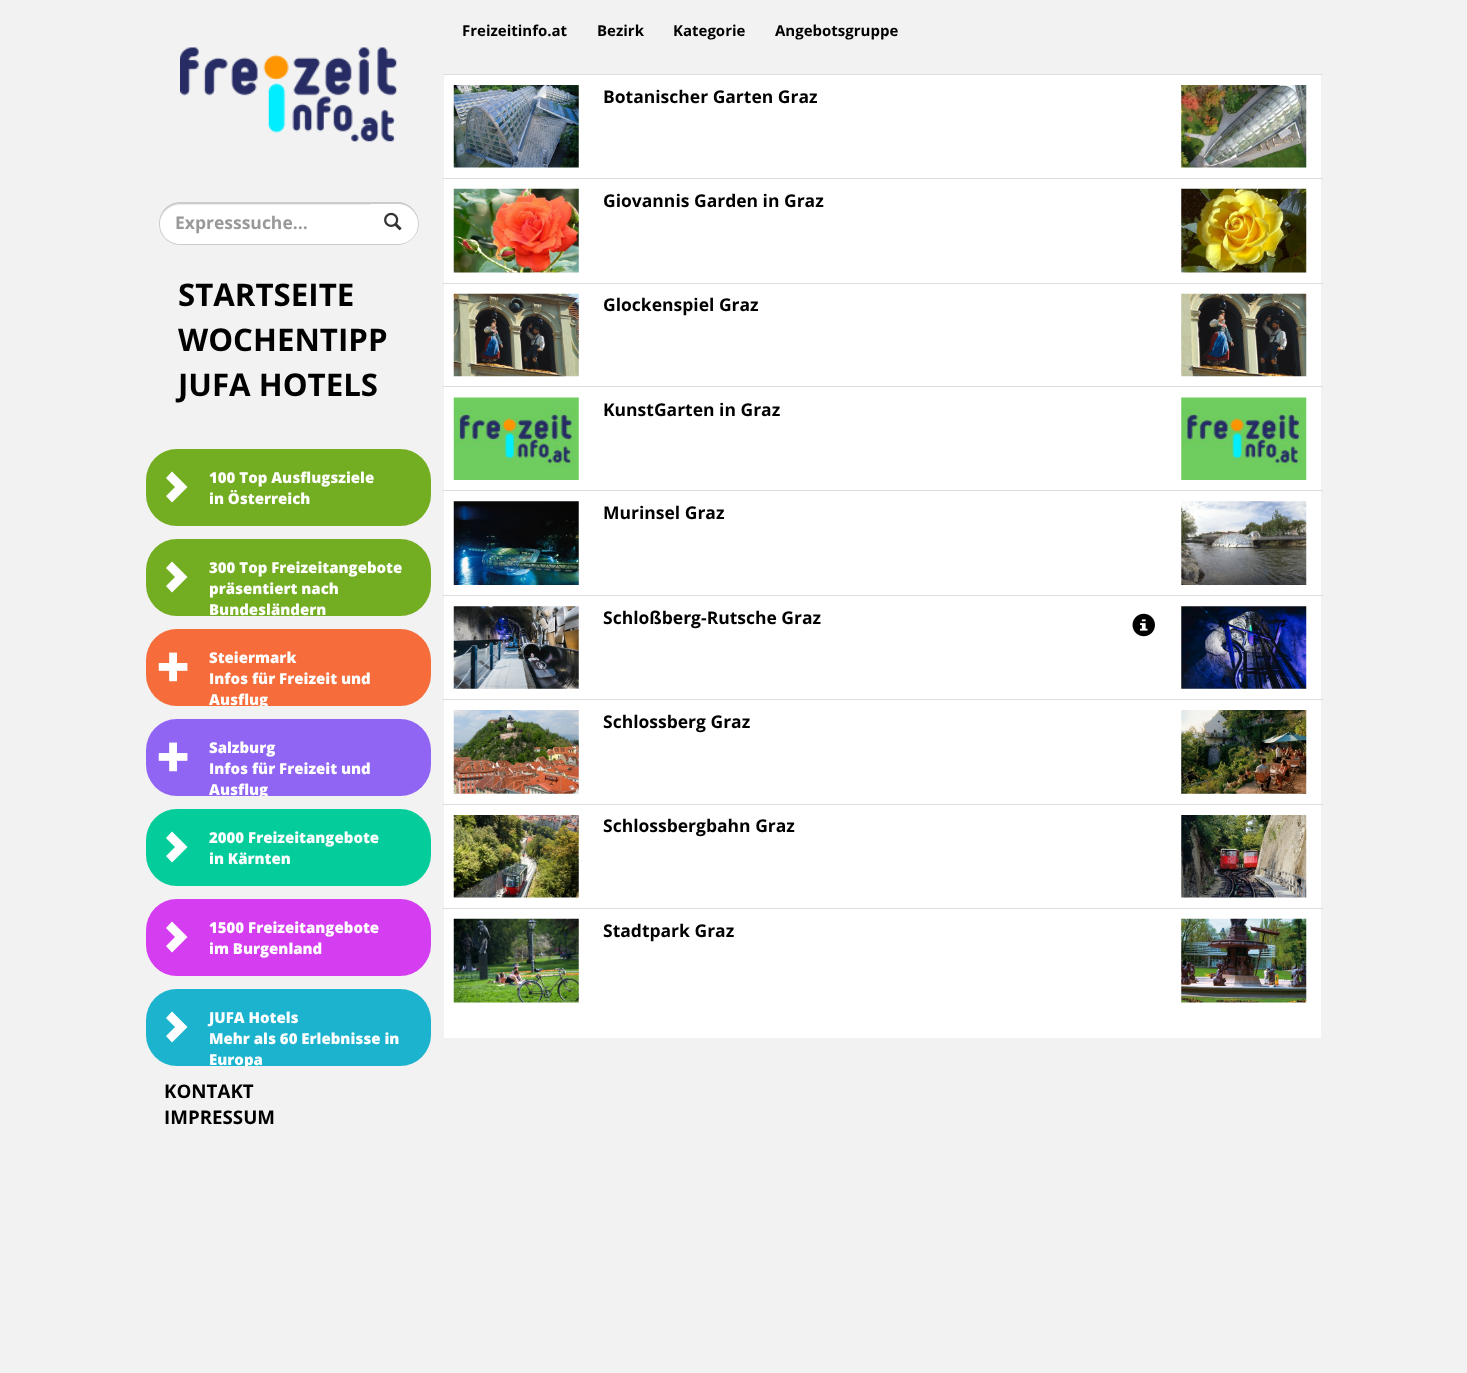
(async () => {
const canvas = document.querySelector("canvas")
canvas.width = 1467
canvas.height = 1373
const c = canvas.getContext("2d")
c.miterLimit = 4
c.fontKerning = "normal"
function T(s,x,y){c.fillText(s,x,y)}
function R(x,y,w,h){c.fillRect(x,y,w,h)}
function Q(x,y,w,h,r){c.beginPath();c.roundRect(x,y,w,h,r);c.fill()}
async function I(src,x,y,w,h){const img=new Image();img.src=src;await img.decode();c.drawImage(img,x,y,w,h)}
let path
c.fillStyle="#f2f2f2"
R(0,0,1467,1373)
await I("1.png",180,47,217,95)
c.fillStyle="#fff"
c.beginPath()
c.roundRect(369,203,50,42,[0,21,21,0])
c.fill()
c.fillStyle="#ccc"
path = new Path2D("M369 202h29c11 0 21 10 21 22c0 11-10 21-21 21h-29zm0 2h29c11 0 20 9 20 20c0 11-9 20-20 20h-29z")
c.fill(path,"evenodd")
c.fillStyle="#fff"
c.beginPath()
c.roundRect(159,203,211,42,[21,0,0,21])
c.fill()
c.fillStyle="#ececec"
path = new Path2D("M180 205h190v-1h-190c-11 0-20 9-20 20v1c0-11 9-20 20-20z")
c.fill(path)
c.fillStyle="#ccc"
path = new Path2D("M180 202h190v43h-190c-12 0-21-10-21-21c0-12 9-22 21-22zm0 2h190v40h-190c-11 0-20-9-20-20c0-11 9-20 20-20z")
c.fill(path,"evenodd")
c.font="bold 17.5px Open Sans"
c.fillStyle="#999"
T("Expresssuche...",175,229)
await I("2.png",384,212,18,19)
c.font="bold 31.25px Open Sans"
c.fillStyle="#000"
T("STARTSEITE",178,306)
T("WOCHENTIPP",178,351)
T("JUFA HOTELS",178,396)
c.fillStyle="#73ad21"
Q(146,449,285,77,31)
c.fillStyle="#fff"
path = new Path2D("M166 496l9-9l-9-9l6-6.5l15.5 15.5l-15.5 15.5z")
c.fill(path)
c.font="800 15px Open Sans"
T("100 Top Ausflugsziele",209,483)
T("in Österreich",209,504)
c.fillStyle="#73ad21"
Q(146,539,285,77,31)
c.fillStyle="#fff"
path = new Path2D("M166 586l9-9l-9-9l6-6.5l15.5 15.5l-15.5 15.5z")
c.fill(path)
T("300 Top Freizeitangebote",209,573)
T("präsentiert nach",209,594)
T("Bundesländern",209,615)
c.fillStyle="#f66c3a"
Q(146,629,285,77,31)
await I("3.png",158,652,30,30)
c.fillStyle="#fff"
T("Steiermark",209,663)
T("Infos für Freizeit und",209,684)
c.save()
c.beginPath()
c.roundRect(146,629,285,77,31)
c.clip()
T("Ausflug",209,705)
c.restore()
c.fillStyle="#9165f4"
Q(146,719,285,77,31)
await I("4.png",158,742,30,30)
c.fillStyle="#fff"
T("Salzburg",209,753)
T("Infos für Freizeit und",209,774)
c.save()
c.beginPath()
c.roundRect(146,719,285,77,31)
c.clip()
T("Ausflug",209,795)
c.restore()
c.fillStyle="#04cd9b"
Q(146,809,285,77,31)
c.fillStyle="#fff"
path = new Path2D("M166 856l9-9l-9-9l6-6.5l15.5 15.5l-15.5 15.5z")
c.fill(path)
T("2000 Freizeitangebote",209,843)
T("in Kärnten",209,864)
c.fillStyle="#d53ef0"
Q(146,899,285,77,31)
c.fillStyle="#fff"
path = new Path2D("M166 946l9-9l-9-9l6-6.5l15.5 15.5l-15.5 15.5z")
c.fill(path)
T("1500 Freizeitangebote",209,933)
T("im Burgenland",209,954)
c.fillStyle="#1cb3ce"
Q(146,989,285,77,31)
c.fillStyle="#fff"
path = new Path2D("M166 1036l9-9l-9-9l6-6.5l15.5 15.5l-15.5 15.5z")
c.fill(path)
T("JUFA Hotels",209,1023)
T("Mehr als 60 Erlebnisse in",209,1044)
c.save()
c.beginPath()
c.roundRect(146,989,285,77,31)
c.clip()
T("Europa",209,1065)
c.restore()
c.font="bold 18.75px Open Sans"
c.fillStyle="#000"
T("KONTAKT",164,1098)
T("IMPRESSUM",164,1124)
c.font="bold 15px Open Sans"
T("Freizeitinfo.at",462,36)
T("Bezirk",597,36)
T("Kategorie",673,36)
T("Angebotsgruppe",775,36)
c.fillStyle="#fff"
R(444,75,877,963)
c.fillStyle="#ddd"
R(443,74,880,1)
await I("5.png",1181,85,126,83)
await I("6.png",453,85,126,83)
c.font="bold 17.5px Open Sans"
c.fillStyle="#000"
T("Botanischer Garten Graz",603,103)
c.fillStyle="#ddd"
R(443,178,880,1)
await I("7.png",1181,188,126,85)
await I("8.png",453,188,126,85)
c.fillStyle="#000"
T("Giovannis Garden in Graz",603,207)
c.fillStyle="#ddd"
R(443,283,880,1)
await I("9.png",1181,293,126,84)
await I("10.png",453,293,126,84)
c.fillStyle="#000"
T("Glockenspiel Graz",603,311)
c.fillStyle="#ddd"
R(443,386,880,1)
await I("11.png",1181,397,126,83)
await I("12.png",453,397,126,83)
c.fillStyle="#000"
T("KunstGarten in Graz",603,416)
c.fillStyle="#ddd"
R(443,490,880,1)
await I("13.png",1181,501,126,84)
await I("14.png",453,501,126,84)
c.fillStyle="#000"
T("Murinsel Graz",603,519)
c.fillStyle="#ddd"
R(443,595,880,1)
await I("15.png",1181,606,126,83)
await I("16.png",453,606,126,83)
c.fillStyle="#000"
T("Schloßberg-Rutsche Graz",603,624)
await I("17.png",1132,613,23,24)
c.fillStyle="#ddd"
R(443,699,880,1)
await I("18.png",1181,710,126,84)
await I("19.png",453,710,126,84)
c.fillStyle="#000"
T("Schlossberg Graz",603,728)
c.fillStyle="#ddd"
R(443,804,880,1)
await I("20.png",1181,815,126,83)
await I("21.png",453,815,126,83)
c.fillStyle="#000"
T("Schlossbergbahn Graz",603,832)
c.fillStyle="#ddd"
R(443,908,880,1)
await I("22.png",1181,918,126,85)
await I("23.png",453,918,126,85)
c.fillStyle="#000"
T("Stadtpark Graz",603,937)
})()
